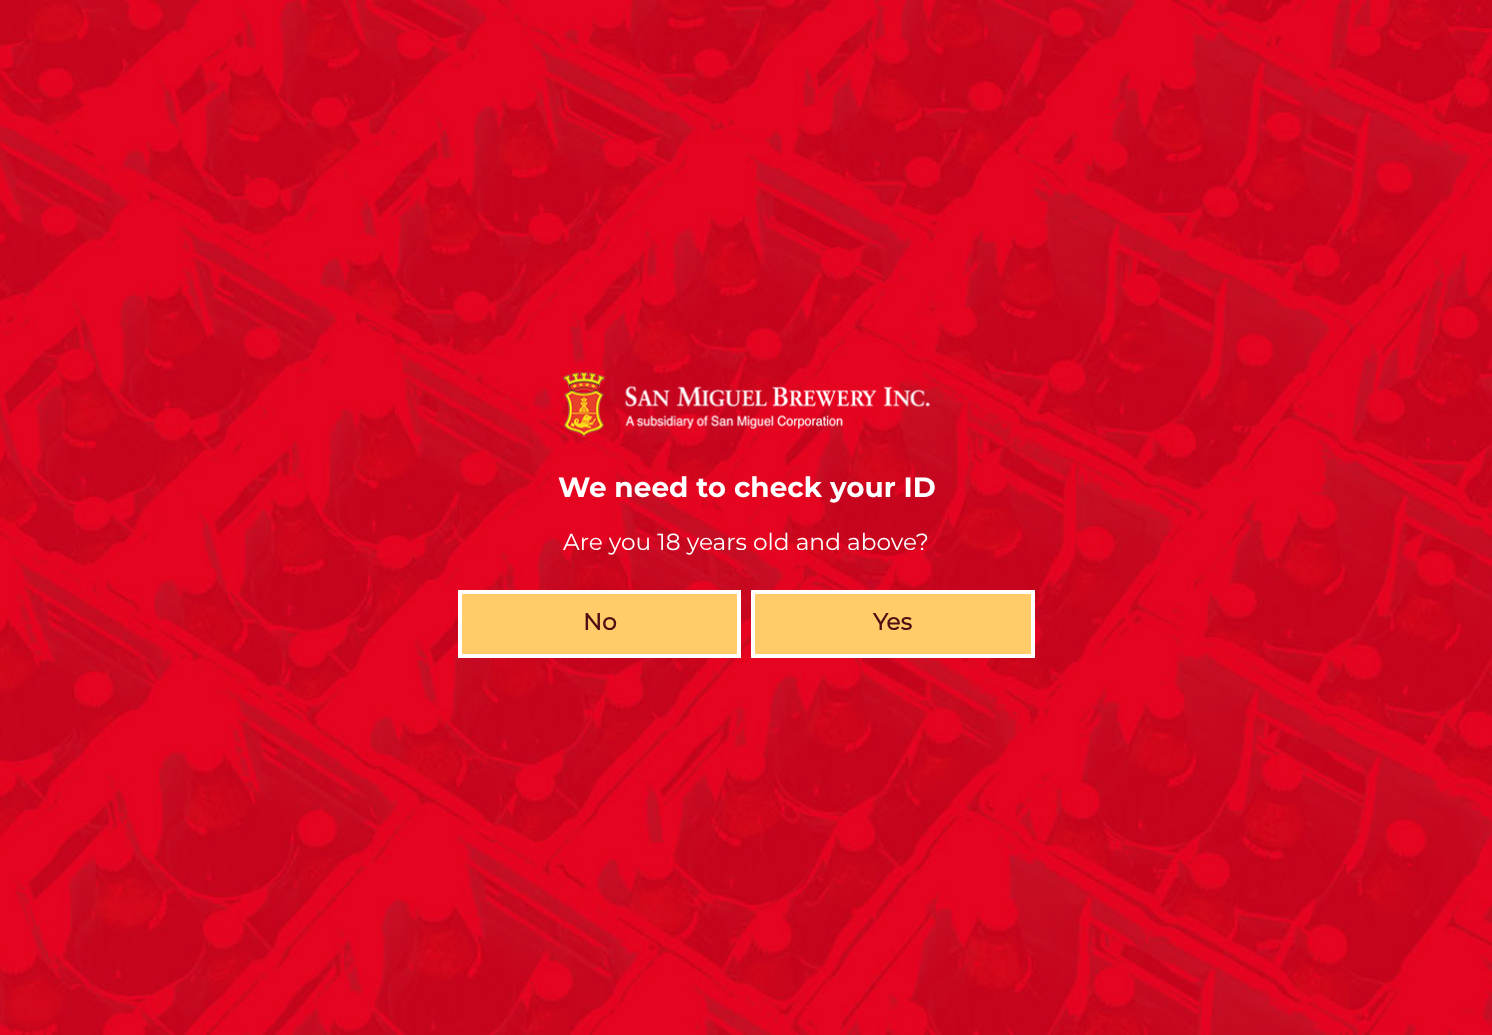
(async () => {
const canvas = document.querySelector("canvas")
canvas.width = 1492
canvas.height = 1035
const c = canvas.getContext("2d")
c.miterLimit = 4
c.fontKerning = "normal"
function T(s,x,y){c.fillText(s,x,y)}
function R(x,y,w,h){c.fillRect(x,y,w,h)}
async function I(src,x,y,w,h){const img=new Image();img.src=src;await img.decode();c.drawImage(img,x,y,w,h)}
c.fillStyle="#fff"
R(0,0,1492,1035)
await I("1.png",0,0,1492,1035)
await I("2.png",563,372,367,65)
c.font="bold 27.9px Montserrat"
T("We need to check your ID",558,497)
c.font="23.25px Montserrat"
T("Are you 18 years old and above?",563,550)
c.fillStyle="#ffcc69"
c.beginPath()
c.rect(460,592,279,64)
c.fill()
c.strokeStyle="#fff"
c.lineWidth=4
c.stroke()
c.font="bold 23.25px 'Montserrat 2'"
c.fillStyle="#4f0c13"
T("No",583,630)
c.fillStyle="#ffcc69"
c.beginPath()
c.rect(753,592,280,64)
c.fill()
c.stroke()
c.fillStyle="#4f0c13"
T("Yes",873,630)
})()
